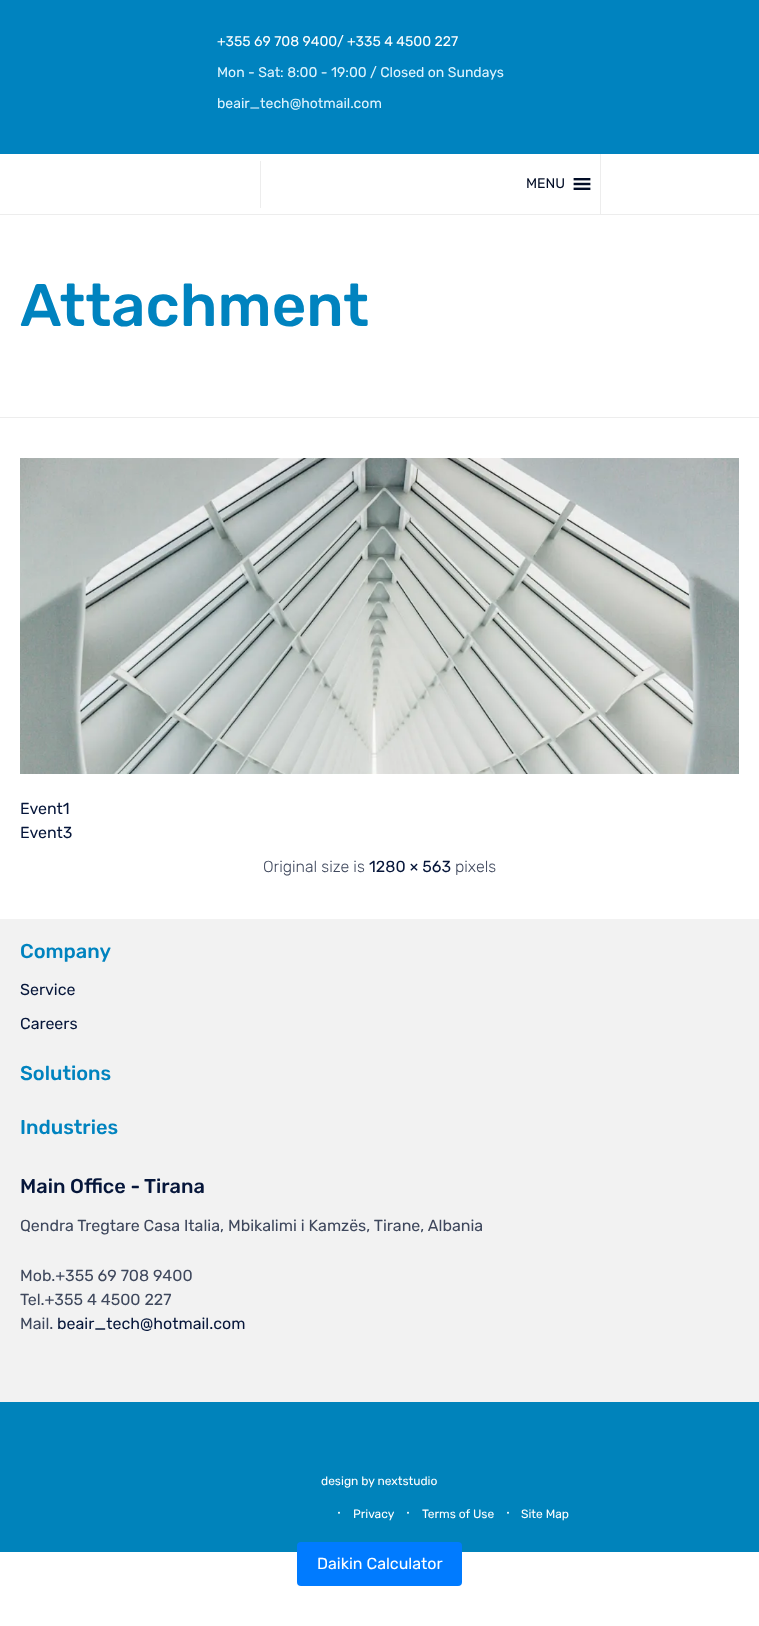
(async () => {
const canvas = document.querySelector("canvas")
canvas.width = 759
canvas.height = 1626
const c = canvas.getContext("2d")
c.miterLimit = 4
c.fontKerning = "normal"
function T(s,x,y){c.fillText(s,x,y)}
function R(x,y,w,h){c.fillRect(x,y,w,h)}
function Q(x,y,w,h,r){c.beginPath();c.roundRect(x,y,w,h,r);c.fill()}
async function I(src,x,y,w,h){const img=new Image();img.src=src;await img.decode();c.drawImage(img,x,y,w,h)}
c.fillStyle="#fff"
R(0,0,759,1626)
c.fillStyle="#ededed"
R(0,214,759,1)
c.fillStyle="#0083bf"
R(0,0,759,154)
c.font="14px Rubik"
c.fillStyle="#fff"
T("+355 69 708 9400/ +335 4 4500 227",217,46)
c.fillStyle="#e0f5ff"
T("Mon - Sat: 8:00 - 19:00 / Closed on Sundays",217,77)
T("beair_tech@hotmail.com",217,108)
c.fillStyle="#ededed"
R(260,161,1,47)
R(600,154,1,60)
c.fillStyle="#020d26"
T("MENU",526,188)
await I("1.png",573,178,18,12)
c.fillStyle="#ededed"
R(0,417,759,1)
c.font="300 60px Rubik"
c.fillStyle="#0083bf"
T("Attachment",20,326)
await I("2.png",20,458,719,316)
c.font="16px Rubik"
c.fillStyle="#06163a"
T("Event1",20,814)
T("Event3",20,838)
c.font="300 16px 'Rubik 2'"
c.fillStyle="#3f485d"
T("Original size is",263,872)
c.font="16px Rubik"
c.fillStyle="#06163a"
T("1280 × 563",369,872)
c.font="300 16px 'Rubik 2'"
c.fillStyle="#3f485d"
T("pixels",455,872)
c.fillStyle="#f2f2f2"
R(0,919,759,483)
c.font="300 20px Rubik"
c.fillStyle="#0083bf"
T("Company",20,958)
c.font="16px Rubik"
c.fillStyle="#06163a"
T("Service",20,995)
T("Careers",20,1029)
c.font="300 20px Rubik"
c.fillStyle="#0083bf"
T("Solutions",20,1080)
T("Industries",20,1134)
c.fillStyle="#06163a"
T("Main Office - Tirana",20,1193)
c.font="16px Rubik"
c.fillStyle="#3f485d"
T("Qendra Tregtare Casa Italia, Mbikalimi i Kamzës, Tirane, Albania",20,1231)
T("Mob.+355 69 708 9400",20,1281)
T("Tel.+355 4 4500 227",20,1305)
T("Mail.",20,1329)
c.fillStyle="#06163a"
T("beair_tech@hotmail.com",57,1329)
c.fillStyle="#0083bb"
R(0,1402,759,150)
c.fillStyle="#007bff"
Q(297,1542,165,44,4)
c.fillStyle="#fff"
T("Daikin Calculator",317,1569)
c.font="12px Rubik"
T("design by nextstudio",321,1485)
c.font="16px Liberation Serif"
T("∙",337,1518)
c.font="12px Rubik"
T("Privacy",353,1518)
c.font="16px Liberation Serif"
T("∙",406,1518)
c.font="12px Rubik"
T("Terms of Use",422,1518)
c.font="16px Liberation Serif"
T("∙",506,1518)
c.font="12px Rubik"
T("Site Map",521,1518)
})()
